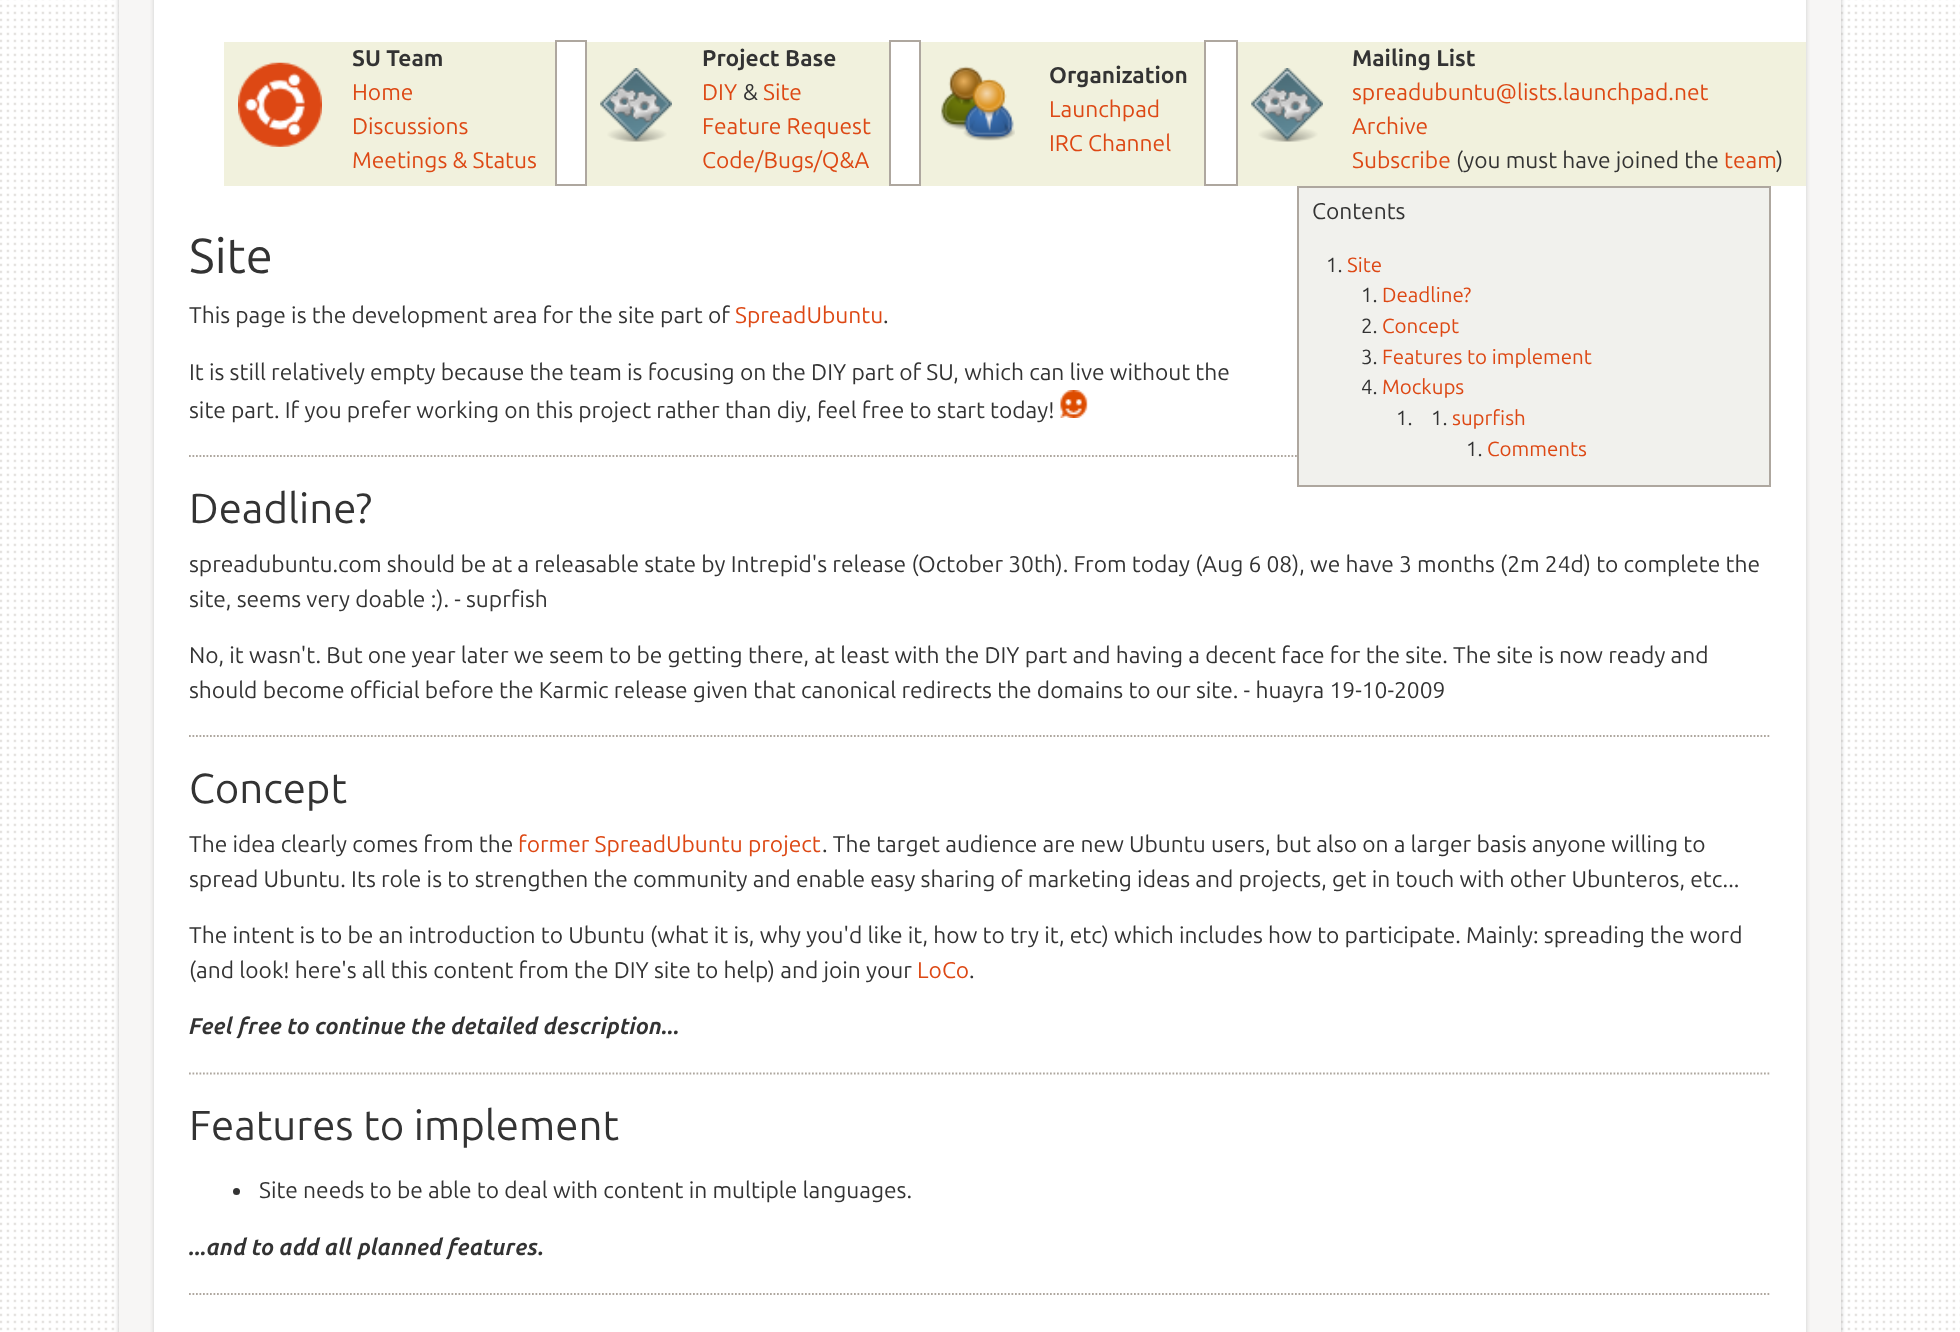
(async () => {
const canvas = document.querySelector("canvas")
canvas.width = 1960
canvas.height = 1332
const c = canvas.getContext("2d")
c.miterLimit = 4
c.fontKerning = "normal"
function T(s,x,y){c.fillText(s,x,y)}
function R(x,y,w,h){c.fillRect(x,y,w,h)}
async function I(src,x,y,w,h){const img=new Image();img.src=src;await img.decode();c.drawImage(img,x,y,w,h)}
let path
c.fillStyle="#fff"
R(0,0,1960,1332)
await I("1.png",0,0,1960,1331)
c.fillStyle="#bbb"
c.filter="blur(2px)"
c.beginPath()
c.roundRect(119,-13,1722,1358,7)
c.fill()
c.filter="none"
c.fillStyle="#f7f6f5"
R(119,0,1722,1332)
c.fillStyle="#ccc"
c.filter="blur(2px)"
c.beginPath()
c.roundRect(154,-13,1652,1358,7)
c.fill()
c.filter="none"
c.fillStyle="#fff"
R(154,0,1652,1332)
c.fillStyle="#f1f1dd"
R(224,42,331,144)
await I("2.png",238,62,84,85)
c.fillStyle="#aea79f"
R(555,40,31,2)
R(585,40,2,146)
R(555,184,31,2)
R(555,40,2,146)
c.fillStyle="#f1f1dd"
R(587,42,302,144)
await I("3.png",600,68,72,74)
c.fillStyle="#aea79f"
R(889,40,32,2)
R(919,40,2,146)
R(889,184,32,2)
R(889,40,2,146)
c.fillStyle="#f1f1dd"
R(921,42,283,144)
await I("4.png",940,66,75,75)
c.fillStyle="#aea79f"
R(1204,40,33,2)
R(1236,40,2,146)
R(1204,184,33,2)
R(1204,40,2,146)
c.fillStyle="#f1f1dd"
R(1238,42,568,144)
await I("3.png",1251,68,72,74)
c.font="bold 22.75px Ubuntu"
c.fillStyle="#333"
T("SU Team",352,66)
c.font="22.75px Ubuntu"
c.fillStyle="#dd4814"
T("Home",352,100)
T("Discussions",352,134)
T("Meetings & Status",352,168)
c.font="bold 22.75px Ubuntu"
c.fillStyle="#333"
T("Project Base",702,66)
c.font="22.75px Ubuntu"
c.fillStyle="#dd4814"
T("DIY",702,100)
c.fillStyle="#333"
T("&",743,100)
c.fillStyle="#dd4814"
T("Site",763,100)
T("Feature Request",702,134)
T("Code/Bugs/Q&A",702,168)
c.font="bold 22.75px Ubuntu"
c.fillStyle="#333"
T("Organization",1049,83)
c.font="22.75px Ubuntu"
c.fillStyle="#dd4814"
T("Launchpad",1049,117)
T("IRC Channel",1049,151)
c.font="bold 22.75px Ubuntu"
c.fillStyle="#333"
T("Mailing List",1352,66)
c.font="22.75px Ubuntu"
c.fillStyle="#dd4814"
T("spreadubuntu@lists.launchpad.net",1352,100)
T("Archive",1352,134)
T("Subscribe",1352,168)
c.fillStyle="#333"
T("(you must have joined the",1456,168)
c.fillStyle="#dd4814"
T("team",1724,168)
c.fillStyle="#333"
T(")",1776,168)
c.font="49px Ubuntu"
T("Site",189,273)
path = new Path2D("M189 456h1582")
c.strokeStyle="#aea79f"
c.lineWidth=1.8
c.setLineDash([1.75,1.75])
c.stroke(path)
c.fillStyle="#f1f1ed"
R(1299,188,470,297)
c.fillStyle="#aea79f"
R(1297,186,474,2)
R(1769,186,2,301)
R(1297,485,474,2)
R(1297,186,2,301)
c.font="22.75px Ubuntu"
c.fillStyle="#333"
T("Contents",1312,219)
c.font="20.5px Ubuntu"
T("1.",1326,272)
c.fillStyle="#dd4814"
T("Site",1347,272)
c.fillStyle="#333"
T("1.",1361,302)
c.fillStyle="#dd4814"
T("Deadline?",1382,302)
c.fillStyle="#333"
T("2.",1361,333)
c.fillStyle="#dd4814"
T("Concept",1382,333)
c.fillStyle="#333"
T("3.",1361,364)
c.fillStyle="#dd4814"
T("Features to implement",1382,364)
c.fillStyle="#333"
T("4.",1361,394)
c.fillStyle="#dd4814"
T("Mockups",1382,394)
c.fillStyle="#333"
T("1.",1396,425)
T("1.",1431,425)
c.fillStyle="#dd4814"
T("suprfish",1452,425)
c.fillStyle="#333"
T("1.",1466,456)
c.fillStyle="#dd4814"
T("Comments",1487,456)
c.font="22.75px Ubuntu"
c.fillStyle="#333"
T("This page is the development area for the site part of",189,323)
c.fillStyle="#dd4814"
T("SpreadUbuntu",735,323)
c.fillStyle="#333"
T(".",883,323)
T("It is still relatively empty because the team is focusing on the DIY part of SU, which can live without the",189,380)
T("site part. If you prefer working on this project rather than diy, feel free to start today!",189,418)
await I("5.png",1060,390,28,28)
c.font="42px Ubuntu"
T("Deadline?",189,523)
c.font="22.75px Ubuntu"
T("spreadubuntu.com should be at a releasable state by Intrepid's release (October 30th). From today (Aug 6 08), we have 3 months (2m 24d) to complete the",189,572)
T("site, seems very doable :). - suprfish",189,607)
T("No, it wasn't. But one year later we seem to be getting there, at least with the DIY part and having a decent face for the site. The site is now ready and",189,663)
T("should become official before the Karmic release given that canonical redirects the domains to our site. - huayra 19-10-2009",189,698)
path = new Path2D("M189 736h1582")
c.stroke(path)
c.font="42px Ubuntu"
T("Concept",189,803)
c.font="22.75px Ubuntu"
T("The idea clearly comes from the",189,852)
c.fillStyle="#dd4814"
T("former SpreadUbuntu project",518,852)
c.fillStyle="#333"
T(". The target audience are new Ubuntu users, but also on a larger basis anyone willing to",822,852)
T("spread Ubuntu. Its role is to strengthen the community and enable easy sharing of marketing ideas and projects, get in touch with other Ubunteros, etc...",189,887)
T("The intent is to be an introduction to Ubuntu (what it is, why you'd like it, how to try it, etc) which includes how to participate. Mainly: spreading the word",189,943)
T("(and look! here's all this content from the DIY site to help) and join your",189,978)
c.fillStyle="#dd4814"
T("LoCo",917,978)
c.fillStyle="#333"
T(".",969,978)
c.font="italic bold 22.75px Ubuntu"
T("Feel free to continue the detailed description...",189,1034)
path = new Path2D("M189 1073.5h1582")
c.stroke(path)
c.font="42px Ubuntu"
T("Features to implement",189,1140)
c.beginPath()
c.arc(236.5,1191.5,3.5,0,7)
c.fill()
c.font="22.75px Ubuntu"
T("Site needs to be able to deal with content in multiple languages.",259,1198)
c.font="italic bold 22.75px Ubuntu"
T("...and to add all planned features.",189,1255)
path = new Path2D("M189 1294h1582")
c.stroke(path)
})()
